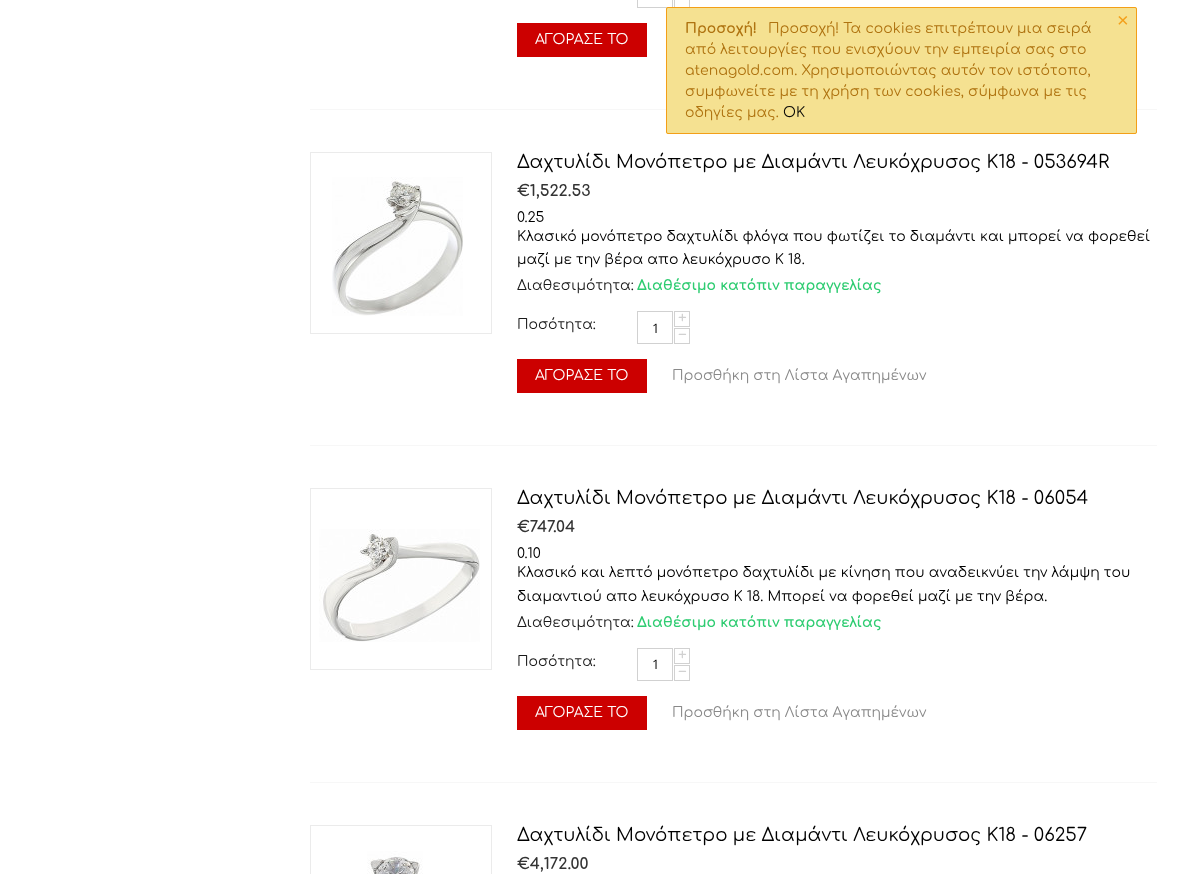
(async () => {
const canvas = document.querySelector("canvas")
canvas.width = 1177
canvas.height = 874
const c = canvas.getContext("2d")
c.miterLimit = 4
c.fontKerning = "normal"
function T(s,x,y){c.fillText(s,x,y)}
function R(x,y,w,h){c.fillRect(x,y,w,h)}
function Q(x,y,w,h,r){c.beginPath();c.roundRect(x,y,w,h,r);c.fill()}
async function I(src,x,y,w,h){const img=new Image();img.src=src;await img.decode();c.drawImage(img,x,y,w,h)}
c.fillStyle="#fff"
R(0,0,1177,874)
c.strokeStyle="#d1d1d1"
c.strokeRect(637.5,-.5,35,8)
c.strokeRect(674.5,-.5,15,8)
c.fillStyle="#f7f7f7"
R(310,109,847,1)
c.fillStyle="#f5e08cf5"
Q(666,7,471,127,2)
c.beginPath()
c.roundRect(666.5,7.5,470,126,1.5)
c.strokeStyle="#f39c12f5"
c.stroke()
c.font="20px Liberation Sans"
c.fillStyle="#f3a01b"
T("×",1117,27)
c.font="bold 14px Comfortaa"
c.fillStyle="#af7310"
T("Προσοχή!",685,33)
c.font="14px Comfortaa"
T("Προσοχή! Τα cookies επιτρέπουν μια σειρά",768,33)
T("από λειτουργίες που ενισχύουν την εμπειρία σας στο",685,54)
T("atenagold.com. Χρησιμοποιώντας αυτόν τον ιστότοπο,",685,75)
T("συμφωνείτε με τη χρήση των cookies, σύμφωνα με τις",685,96)
T("οδηγίες μας.",685,117)
c.fillStyle="#0a0906"
T("OK",783,117)
c.fillStyle="#c00"
R(517,23,130,34)
c.fillStyle="#fff"
T("ΑΓΟΡΑΣΕ ΤΟ",535,44)
c.strokeStyle="#ebebeb"
c.strokeRect(310.5,152.5,181,181)
await I("1.png",332,177,131,139)
c.font="18.2px Comfortaa"
c.fillStyle="#000"
T("Δαχτυλίδι Μονόπετρο με Διαμάντι Λευκόχρυσος Κ18 - 053694R",517,168)
c.font="bold 15.5px Comfortaa"
c.fillStyle="#343434"
T("€1,522.53",517,196)
c.font="14px Comfortaa"
c.fillStyle="#000"
T("0.25",517,222)
T("Κλασικό μονόπετρο δαχτυλίδι φλόγα που φωτίζει το διαμάντι και μπορεί να φορεθεί",517,241)
T("μαζί με την βέρα απο λευκόχρυσο Κ 18.",517,264)
c.fillStyle="#1a1a1a"
T("Διαθεσιμότητα:",517,290)
c.font="bold 14px Comfortaa"
c.fillStyle="#2ecc71"
T("Διαθέσιμο κατόπιν παραγγελίας",637,290)
c.font="14px Comfortaa"
c.fillStyle="#1a1a1a"
T("Ποσότητα:",517,329)
c.strokeStyle="#d1d1d1"
c.strokeRect(674.5,311.5,15,15)
c.font="16px Comfortaa"
c.fillStyle="#d1d1d1"
T("+",678,323)
c.strokeRect(637.5,311.5,35,32)
c.font="13px Open Sans"
c.fillStyle="#000"
T("1",652,333)
c.strokeRect(674.5,328.5,15,15)
c.font="16px Comfortaa"
c.fillStyle="#d1d1d1"
T("−",678,340)
c.fillStyle="#c00"
R(517,359,130,34)
c.font="14px Comfortaa"
c.fillStyle="#fff"
T("ΑΓΟΡΑΣΕ ΤΟ",535,380)
c.fillStyle="#898989"
T("Προσθήκη στη Λίστα Αγαπημένων",672,380)
c.fillStyle="#f7f7f7"
R(310,445,847,1)
c.strokeStyle="#ebebeb"
c.strokeRect(310.5,488.5,181,181)
await I("2.png",319,529,161,113)
c.font="18.2px Comfortaa"
c.fillStyle="#000"
T("Δαχτυλίδι Μονόπετρο με Διαμάντι Λευκόχρυσος Κ18 - 06054",517,504)
c.font="bold 15.5px Comfortaa"
c.fillStyle="#343434"
T("€747.04",517,532)
c.font="14px Comfortaa"
c.fillStyle="#000"
T("0.10",517,558)
T("Κλασικό και λεπτό μονόπετρο δαχτυλίδι με κίνηση που αναδεικνύει την λάμψη του",517,577)
T("διαμαντιού απο λευκόχρυσο Κ 18. Μπορεί να φορεθεί μαζί με την βέρα.",517,601)
c.fillStyle="#1a1a1a"
T("Διαθεσιμότητα:",517,627)
c.font="bold 14px Comfortaa"
c.fillStyle="#2ecc71"
T("Διαθέσιμο κατόπιν παραγγελίας",637,627)
c.font="14px Comfortaa"
c.fillStyle="#1a1a1a"
T("Ποσότητα:",517,666)
c.strokeStyle="#d1d1d1"
c.strokeRect(674.5,648.5,15,15)
c.font="16px Comfortaa"
c.fillStyle="#d1d1d1"
T("+",678,660)
c.strokeRect(637.5,648.5,35,32)
c.font="13px Open Sans"
c.fillStyle="#000"
T("1",652,669)
c.strokeRect(674.5,665.5,15,15)
c.font="16px Comfortaa"
c.fillStyle="#d1d1d1"
T("−",678,677)
c.fillStyle="#c00"
R(517,696,130,34)
c.font="14px Comfortaa"
c.fillStyle="#fff"
T("ΑΓΟΡΑΣΕ ΤΟ",535,717)
c.fillStyle="#898989"
T("Προσθήκη στη Λίστα Αγαπημένων",672,717)
c.fillStyle="#f7f7f7"
R(310,782,847,1)
c.strokeStyle="#ebebeb"
c.strokeRect(310.5,825.5,181,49)
await I("3.png",367,851,56,23)
c.font="18.2px Comfortaa"
c.fillStyle="#000"
T("Δαχτυλίδι Μονόπετρο με Διαμάντι Λευκόχρυσος Κ18 - 06257",517,841)
c.font="bold 15.5px Comfortaa"
c.fillStyle="#343434"
T("€4,172.00",517,869)
})()
